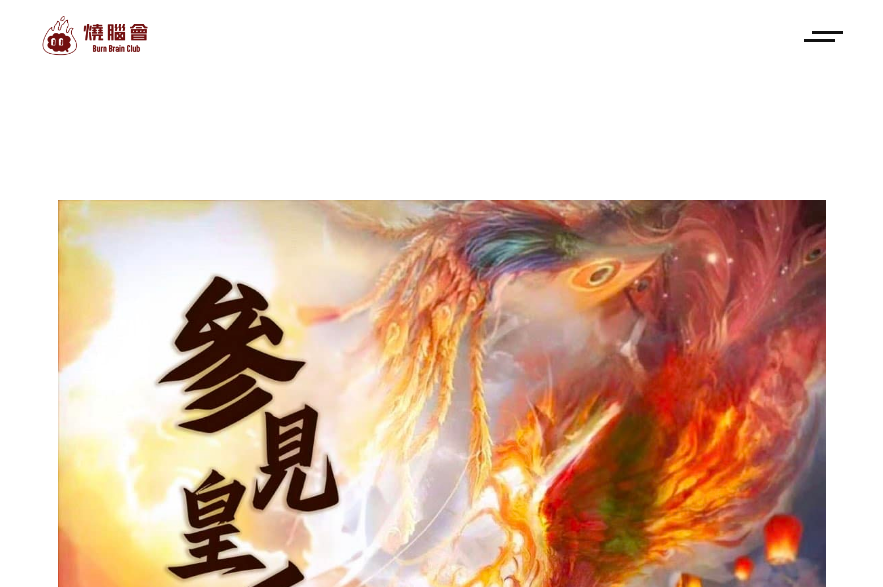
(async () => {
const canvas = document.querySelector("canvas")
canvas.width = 883
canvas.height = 587
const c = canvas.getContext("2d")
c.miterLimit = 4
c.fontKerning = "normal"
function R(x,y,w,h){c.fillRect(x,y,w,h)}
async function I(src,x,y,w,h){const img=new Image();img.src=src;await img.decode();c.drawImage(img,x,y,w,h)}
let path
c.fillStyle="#fff"
R(0,0,883,587)
await I("1.png",42,16,106,40)
c.fillStyle="#111"
path = new Path2D("M812 34v-3h31v3zm23 8h-31v-3h31z")
c.fill(path,"evenodd")
await I("2.png",58,200,768,387)
})()
